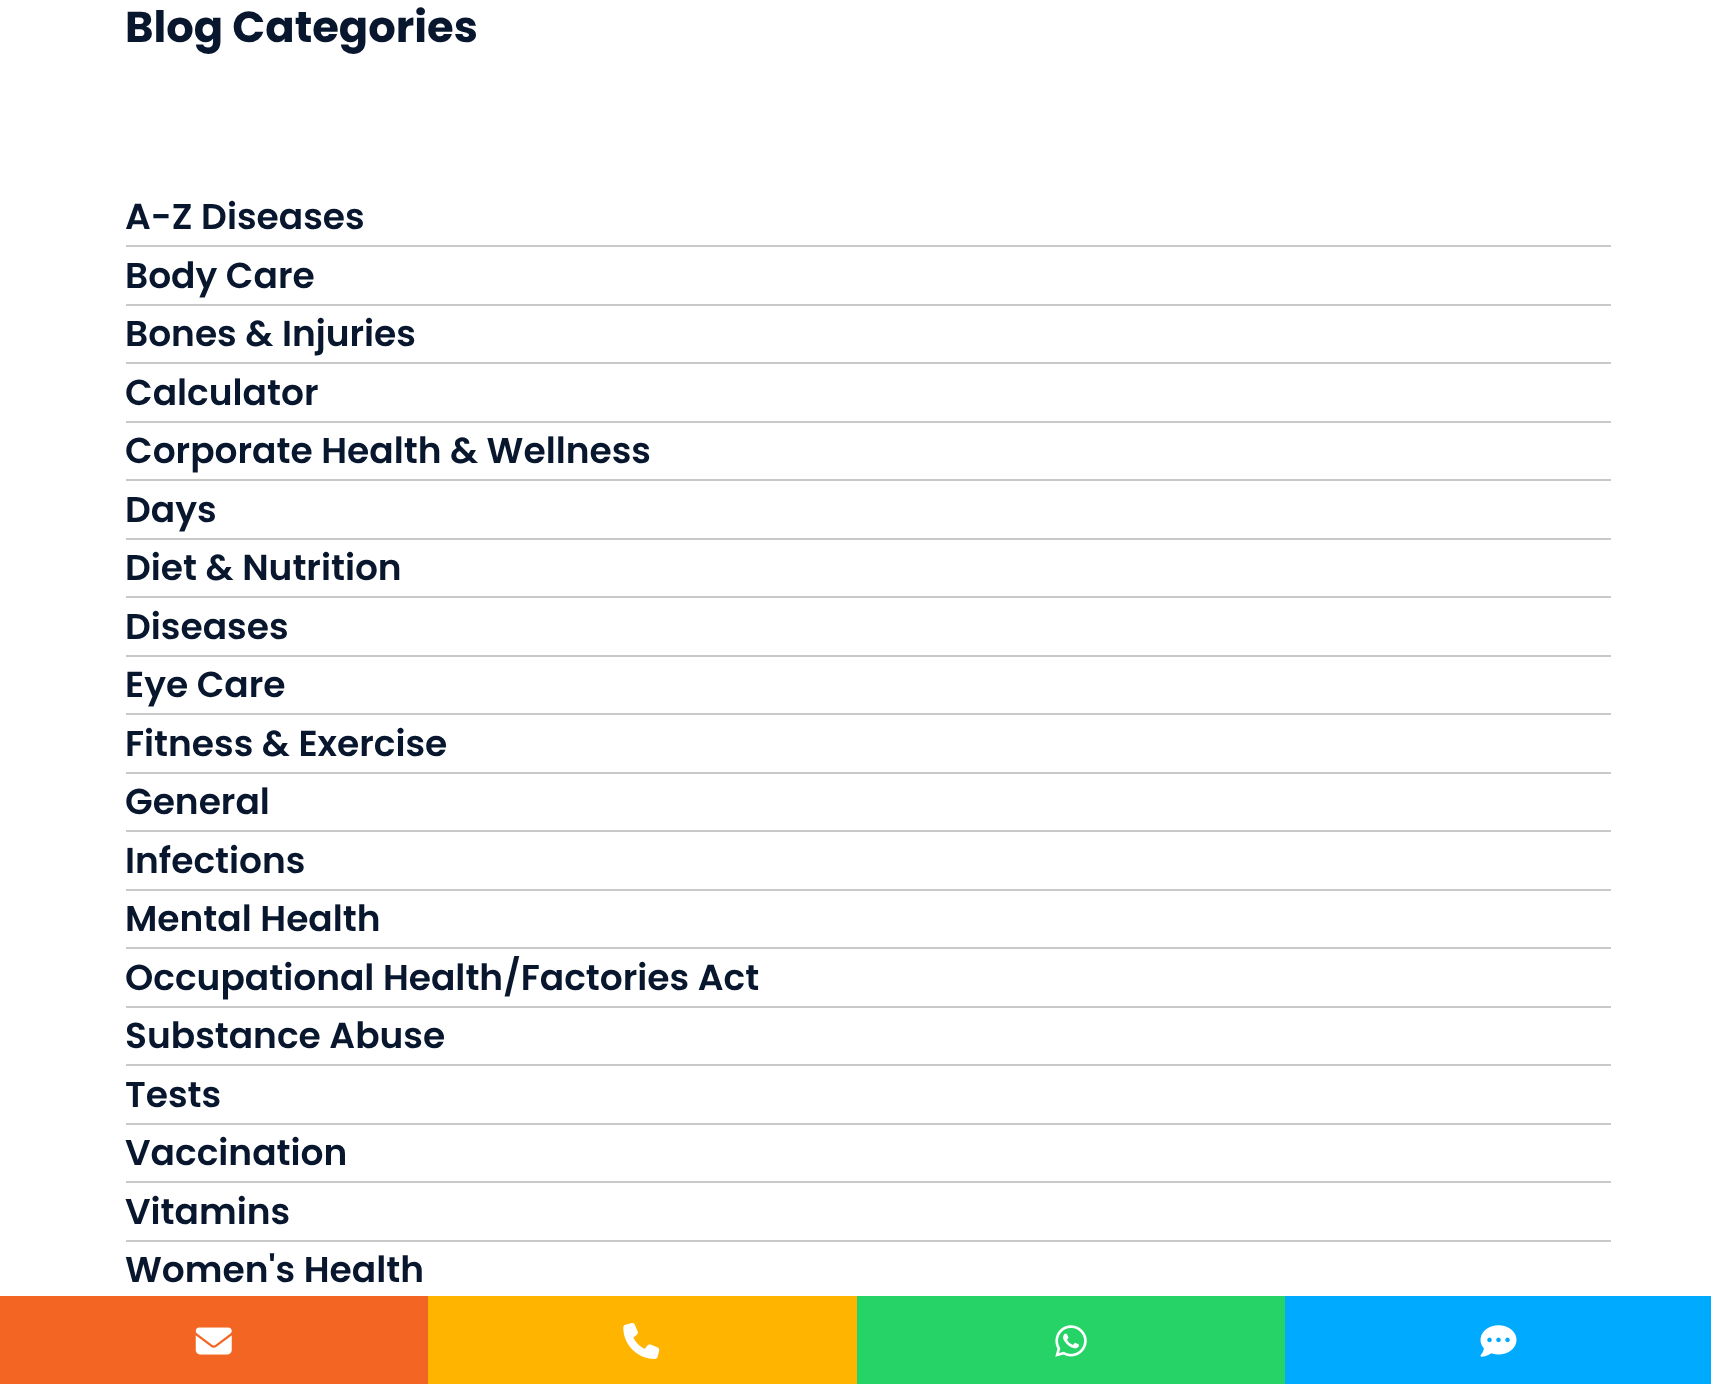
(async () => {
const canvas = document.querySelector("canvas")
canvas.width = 1711
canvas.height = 1384
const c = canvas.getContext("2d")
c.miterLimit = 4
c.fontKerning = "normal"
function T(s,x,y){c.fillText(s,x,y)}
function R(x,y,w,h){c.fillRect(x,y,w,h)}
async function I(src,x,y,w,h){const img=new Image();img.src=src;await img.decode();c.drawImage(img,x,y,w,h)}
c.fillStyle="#fff"
R(0,0,1711,1384)
c.font="bold 43.25px Poppins"
c.fillStyle="#08172e"
T("Blog Categories",125,42)
c.fillStyle="#c9cac7"
R(126,245,1485,2)
c.font="600 36px Poppins"
c.fillStyle="#08172e"
T("A-Z Diseases",125,229)
c.fillStyle="#c9cac7"
R(126,304,1485,2)
c.fillStyle="#08172e"
T("Body Care",125,288)
c.fillStyle="#c9cac7"
R(126,362,1485,2)
c.fillStyle="#08172e"
T("Bones & Injuries",125,346)
c.fillStyle="#c9cac7"
R(126,421,1485,2)
c.fillStyle="#08172e"
T("Calculator",125,405)
c.fillStyle="#c9cac7"
R(126,479,1485,2)
c.fillStyle="#08172e"
T("Corporate Health & Wellness",125,463)
c.fillStyle="#c9cac7"
R(126,538,1485,2)
c.fillStyle="#08172e"
T("Days",125,522)
c.fillStyle="#c9cac7"
R(126,596,1485,2)
c.fillStyle="#08172e"
T("Diet & Nutrition",125,580)
c.fillStyle="#c9cac7"
R(126,655,1485,2)
c.fillStyle="#08172e"
T("Diseases",125,639)
c.fillStyle="#c9cac7"
R(126,713,1485,2)
c.fillStyle="#08172e"
T("Eye Care",125,697)
c.fillStyle="#c9cac7"
R(126,772,1485,2)
c.fillStyle="#08172e"
T("Fitness & Exercise",125,756)
c.fillStyle="#c9cac7"
R(126,830,1485,2)
c.fillStyle="#08172e"
T("General",125,814)
c.fillStyle="#c9cac7"
R(126,889,1485,2)
c.fillStyle="#08172e"
T("Infections",125,873)
c.fillStyle="#c9cac7"
R(126,947,1485,2)
c.fillStyle="#08172e"
T("Mental Health",125,931)
c.fillStyle="#c9cac7"
R(126,1006,1485,2)
c.fillStyle="#08172e"
T("Occupational Health/Factories Act",125,990)
c.fillStyle="#c9cac7"
R(126,1064,1485,2)
c.fillStyle="#08172e"
T("Substance Abuse",125,1048)
c.fillStyle="#c9cac7"
R(126,1123,1485,2)
c.fillStyle="#08172e"
T("Tests",125,1107)
c.fillStyle="#c9cac7"
R(126,1181,1485,2)
c.fillStyle="#08172e"
T("Vaccination",125,1165)
c.fillStyle="#c9cac7"
R(126,1240,1485,2)
c.fillStyle="#08172e"
T("Vitamins",125,1224)
T("Women's Health",125,1282)
c.fillStyle="#f26522"
R(0,1296,428,88)
await I("1.png",195,1327,37,28)
c.fillStyle="#ffb400"
R(428,1296,429,88)
await I("2.png",623,1323,37,36)
c.fillStyle="#25d366"
R(857,1296,428,88)
await I("3.png",1055,1325,32,32)
c.fillStyle="#0af"
R(1285,1296,426,88)
await I("4.png",1480,1325,37,32)
})()
